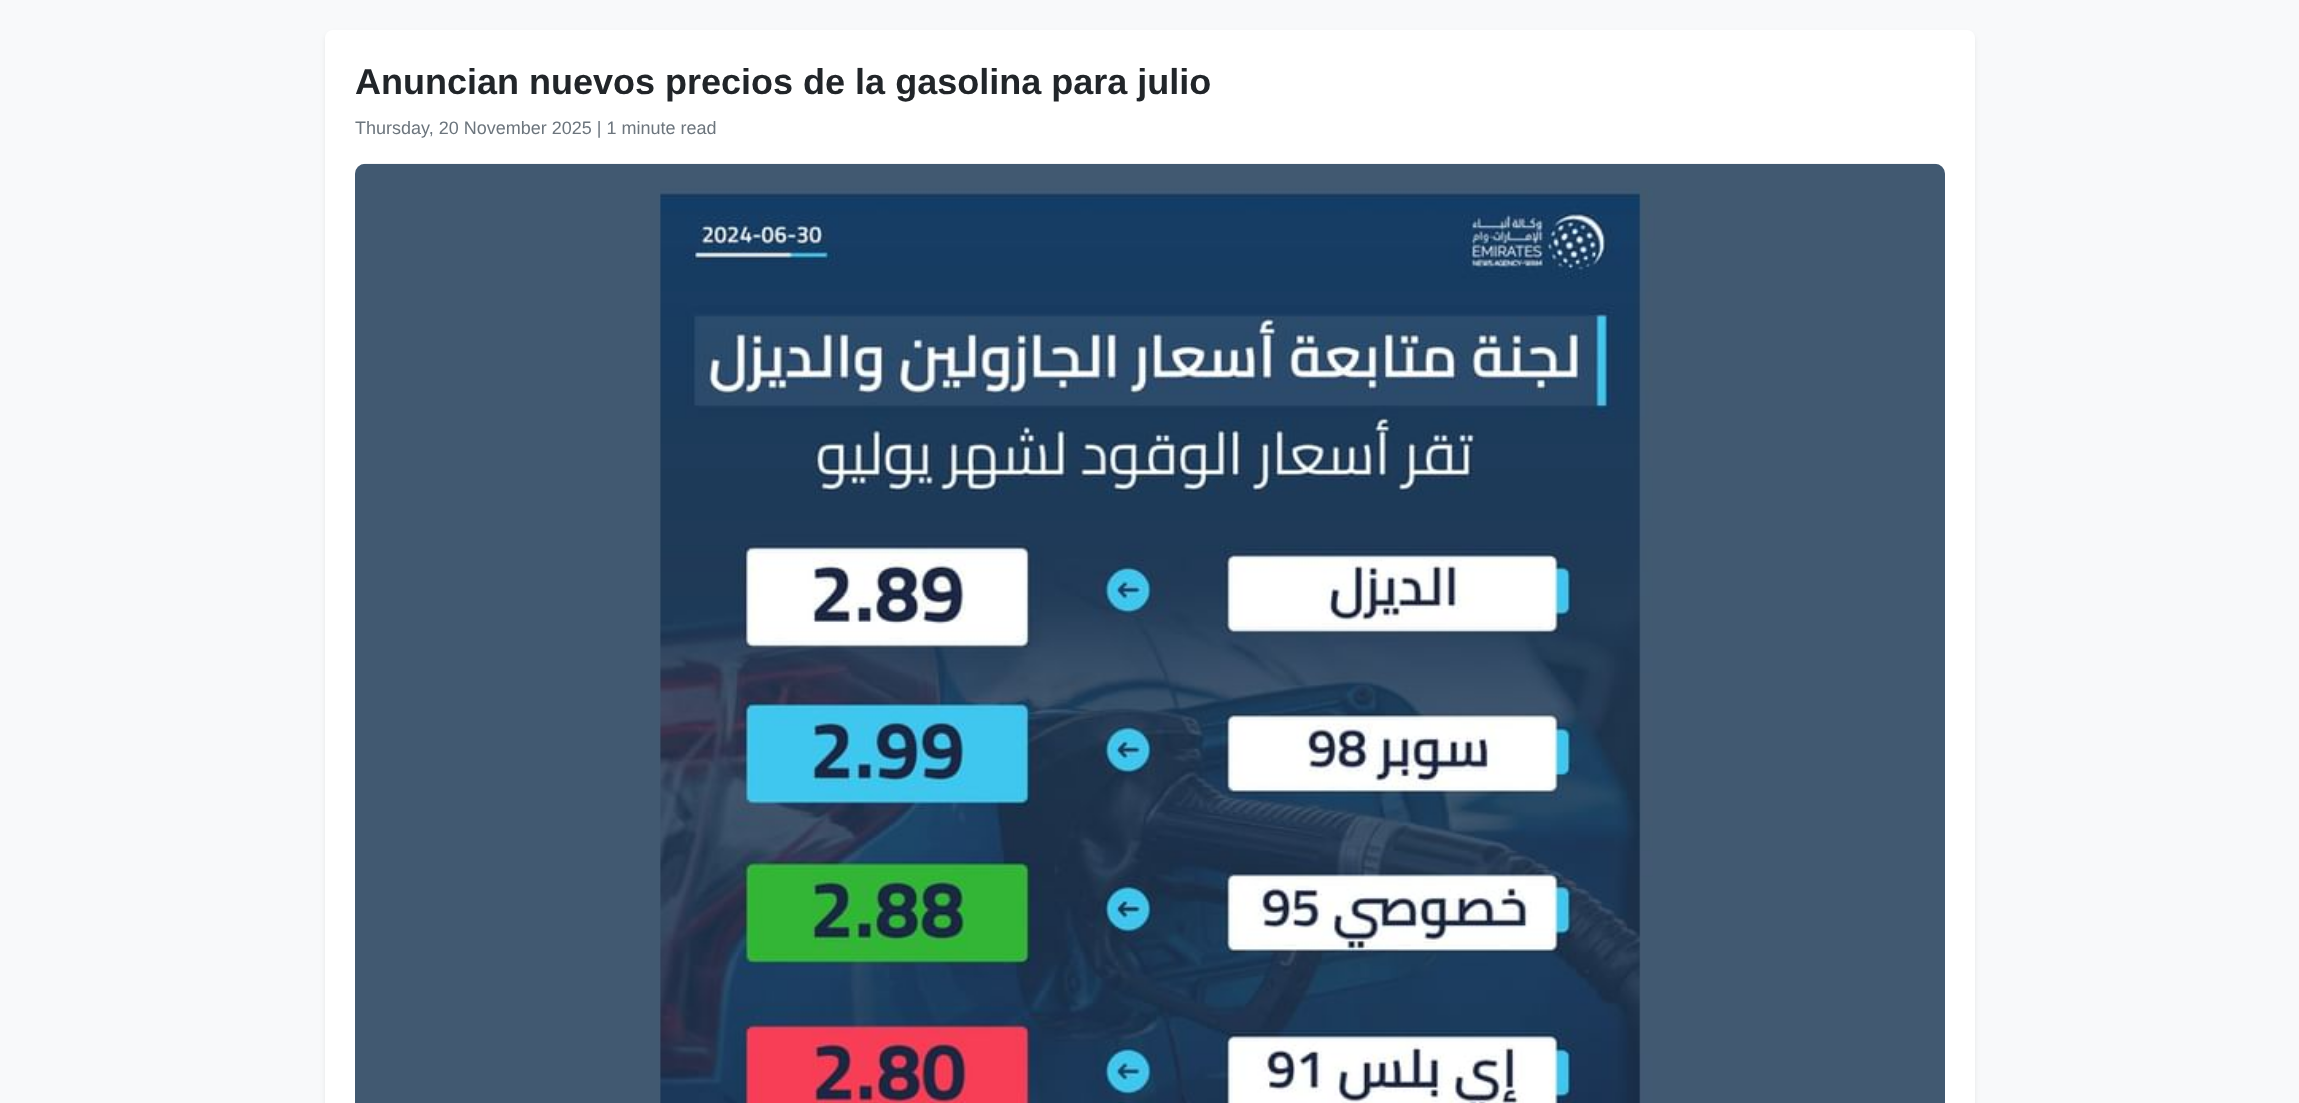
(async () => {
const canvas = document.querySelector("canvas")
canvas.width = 2299
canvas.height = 1103
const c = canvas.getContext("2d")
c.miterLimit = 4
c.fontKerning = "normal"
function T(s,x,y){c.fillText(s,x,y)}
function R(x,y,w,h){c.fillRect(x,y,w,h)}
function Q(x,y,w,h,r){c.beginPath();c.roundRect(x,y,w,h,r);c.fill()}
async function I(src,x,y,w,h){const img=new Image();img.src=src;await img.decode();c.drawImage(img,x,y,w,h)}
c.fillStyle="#f8f9fa"
R(0,0,2299,1103)
c.fillStyle="#00000012"
c.filter="blur(2.5px)"
c.beginPath()
c.roundRect(325,33,1650,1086,8)
c.fill()
c.filter="none"
c.fillStyle="#fff"
Q(325,30,1650,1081,8)
c.font="bold 36px Liberation Sans"
c.fillStyle="#212529"
T("Anuncian nuevos precios de la gasolina para julio",355,94)
c.font="18px Liberation Sans"
c.fillStyle="#6c757d"
T("Thursday, 20 November 2025 | 1 minute read",355,134)
await I("1.png",355,163,1590,940)
})()
